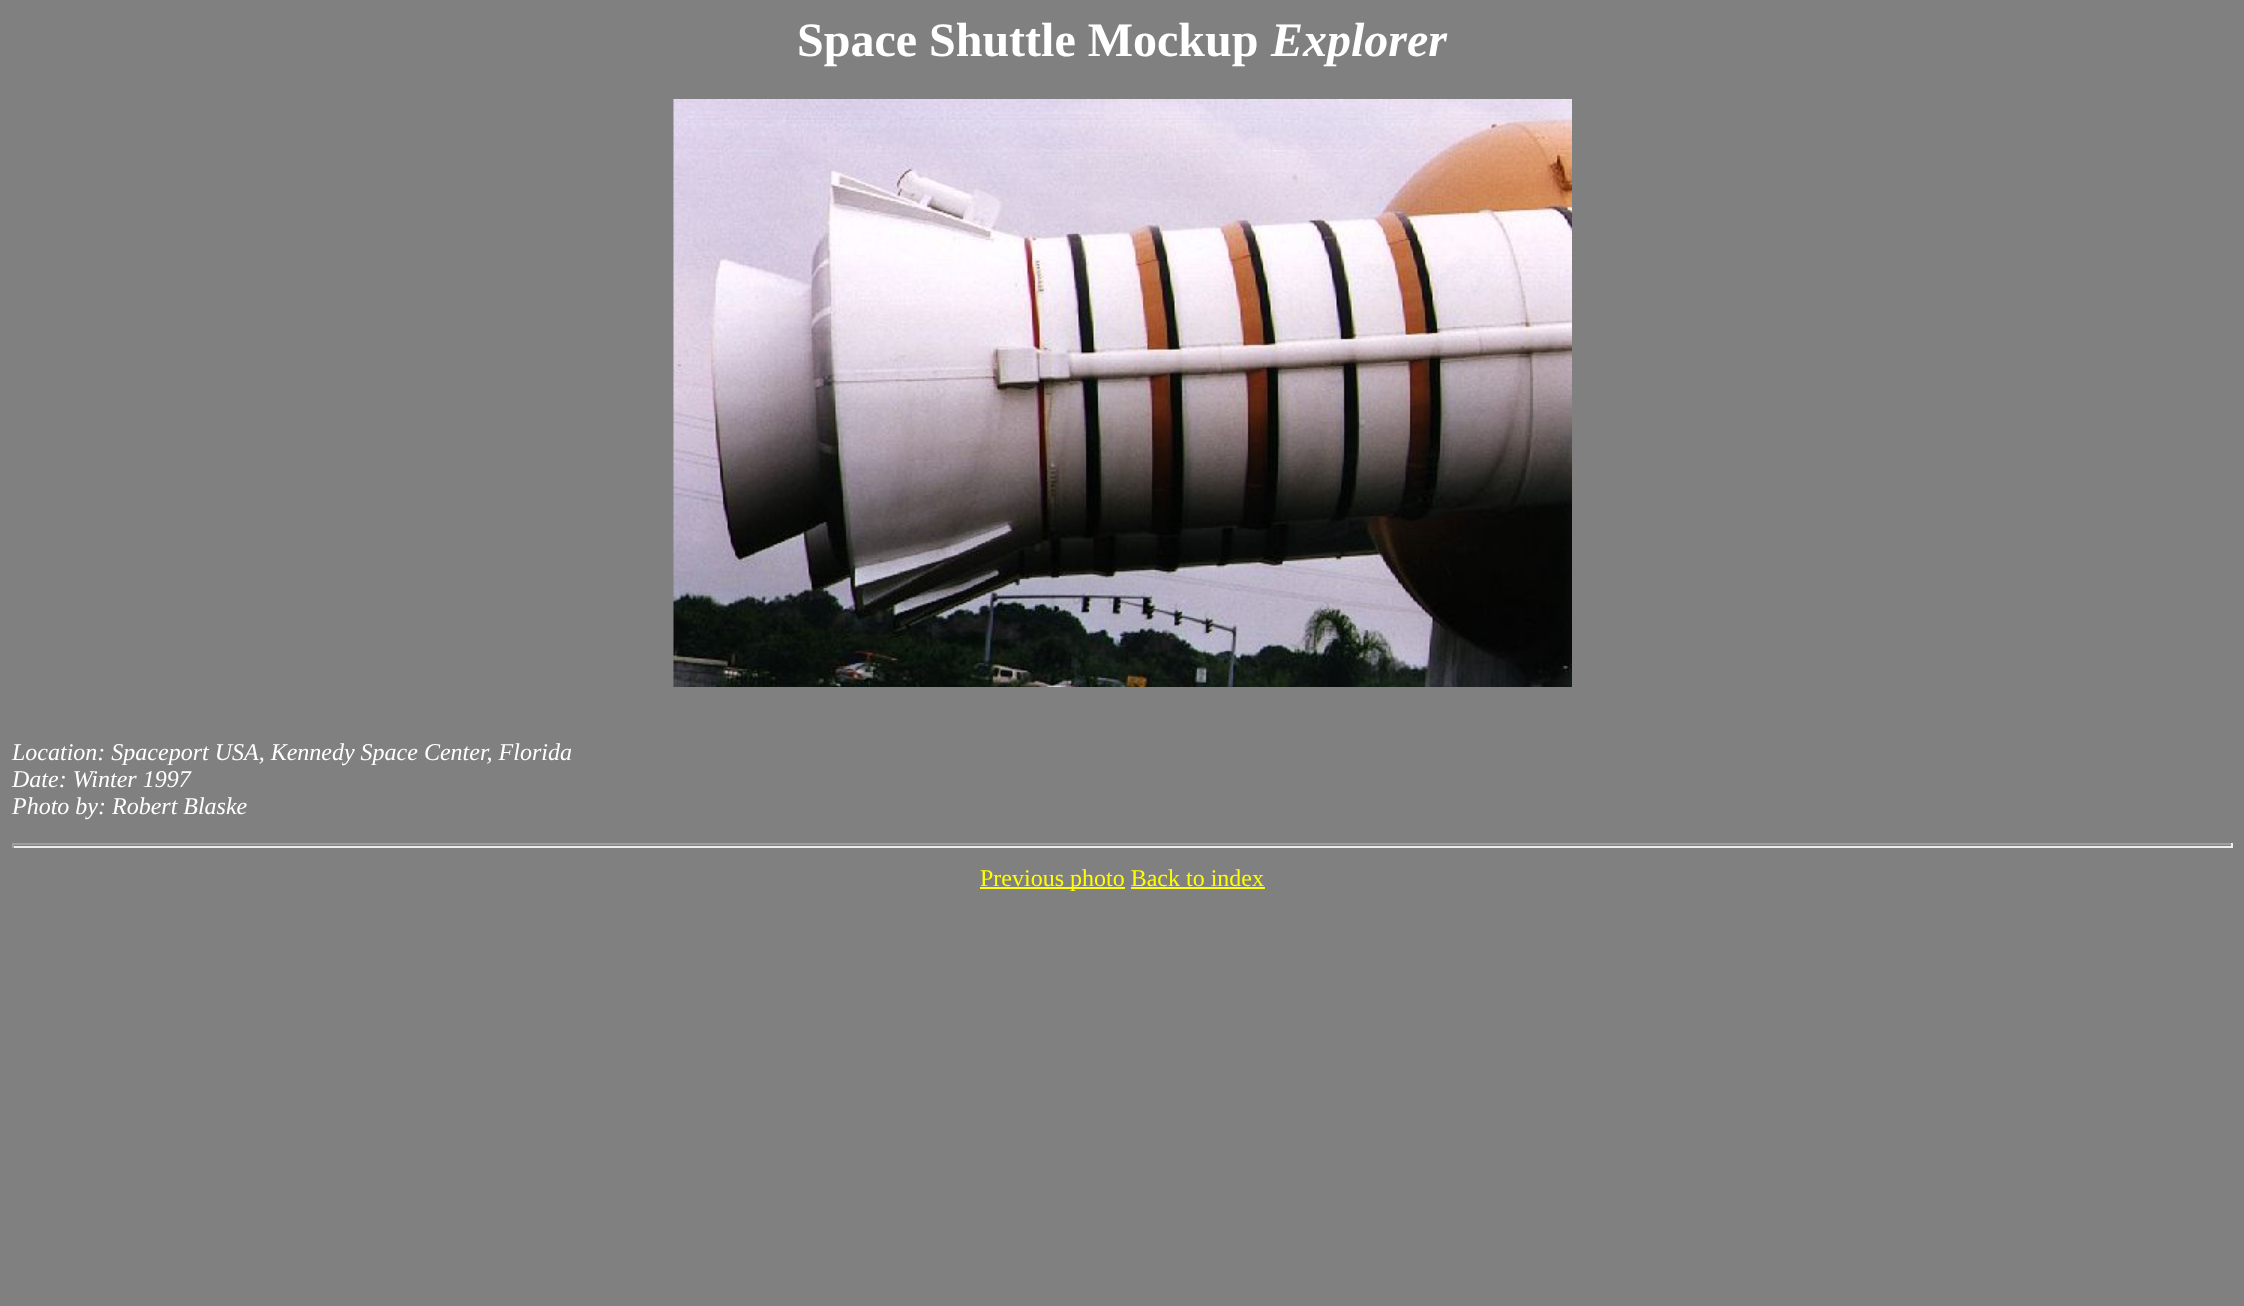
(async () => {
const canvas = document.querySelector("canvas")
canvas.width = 2244
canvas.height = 1306
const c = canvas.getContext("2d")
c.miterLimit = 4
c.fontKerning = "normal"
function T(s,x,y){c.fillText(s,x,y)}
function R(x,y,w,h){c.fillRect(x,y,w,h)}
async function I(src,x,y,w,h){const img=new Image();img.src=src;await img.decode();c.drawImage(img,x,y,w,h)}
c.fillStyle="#808080"
R(0,0,2244,1306)
c.font="bold 48px Liberation Serif"
c.fillStyle="#fff"
T("Space Shuttle Mockup",797,56)
c.font="italic bold 48px Liberation Serif"
T("Explorer",1271,56)
await I("1.png",673,99,899,588)
c.font="italic 24px Liberation Serif"
T("Location: Spaceport USA, Kennedy Space Center, Florida",12,760)
T("Date: Winter 1997",12,787)
T("Photo by: Robert Blaske",12,814)
c.fillStyle="#9f9f9f"
R(12,843,2220,2)
c.fillStyle="#eee"
R(2231,843,2,5)
R(12,846,2220,2)
c.fillStyle="#9f9f9f"
R(12,843,2,5)
c.fillStyle="#ff0"
R(980,887,145,2)
c.font="24px Liberation Serif"
T("Previous photo Back to index",980,886)
R(1131,887,134,2)
})()
